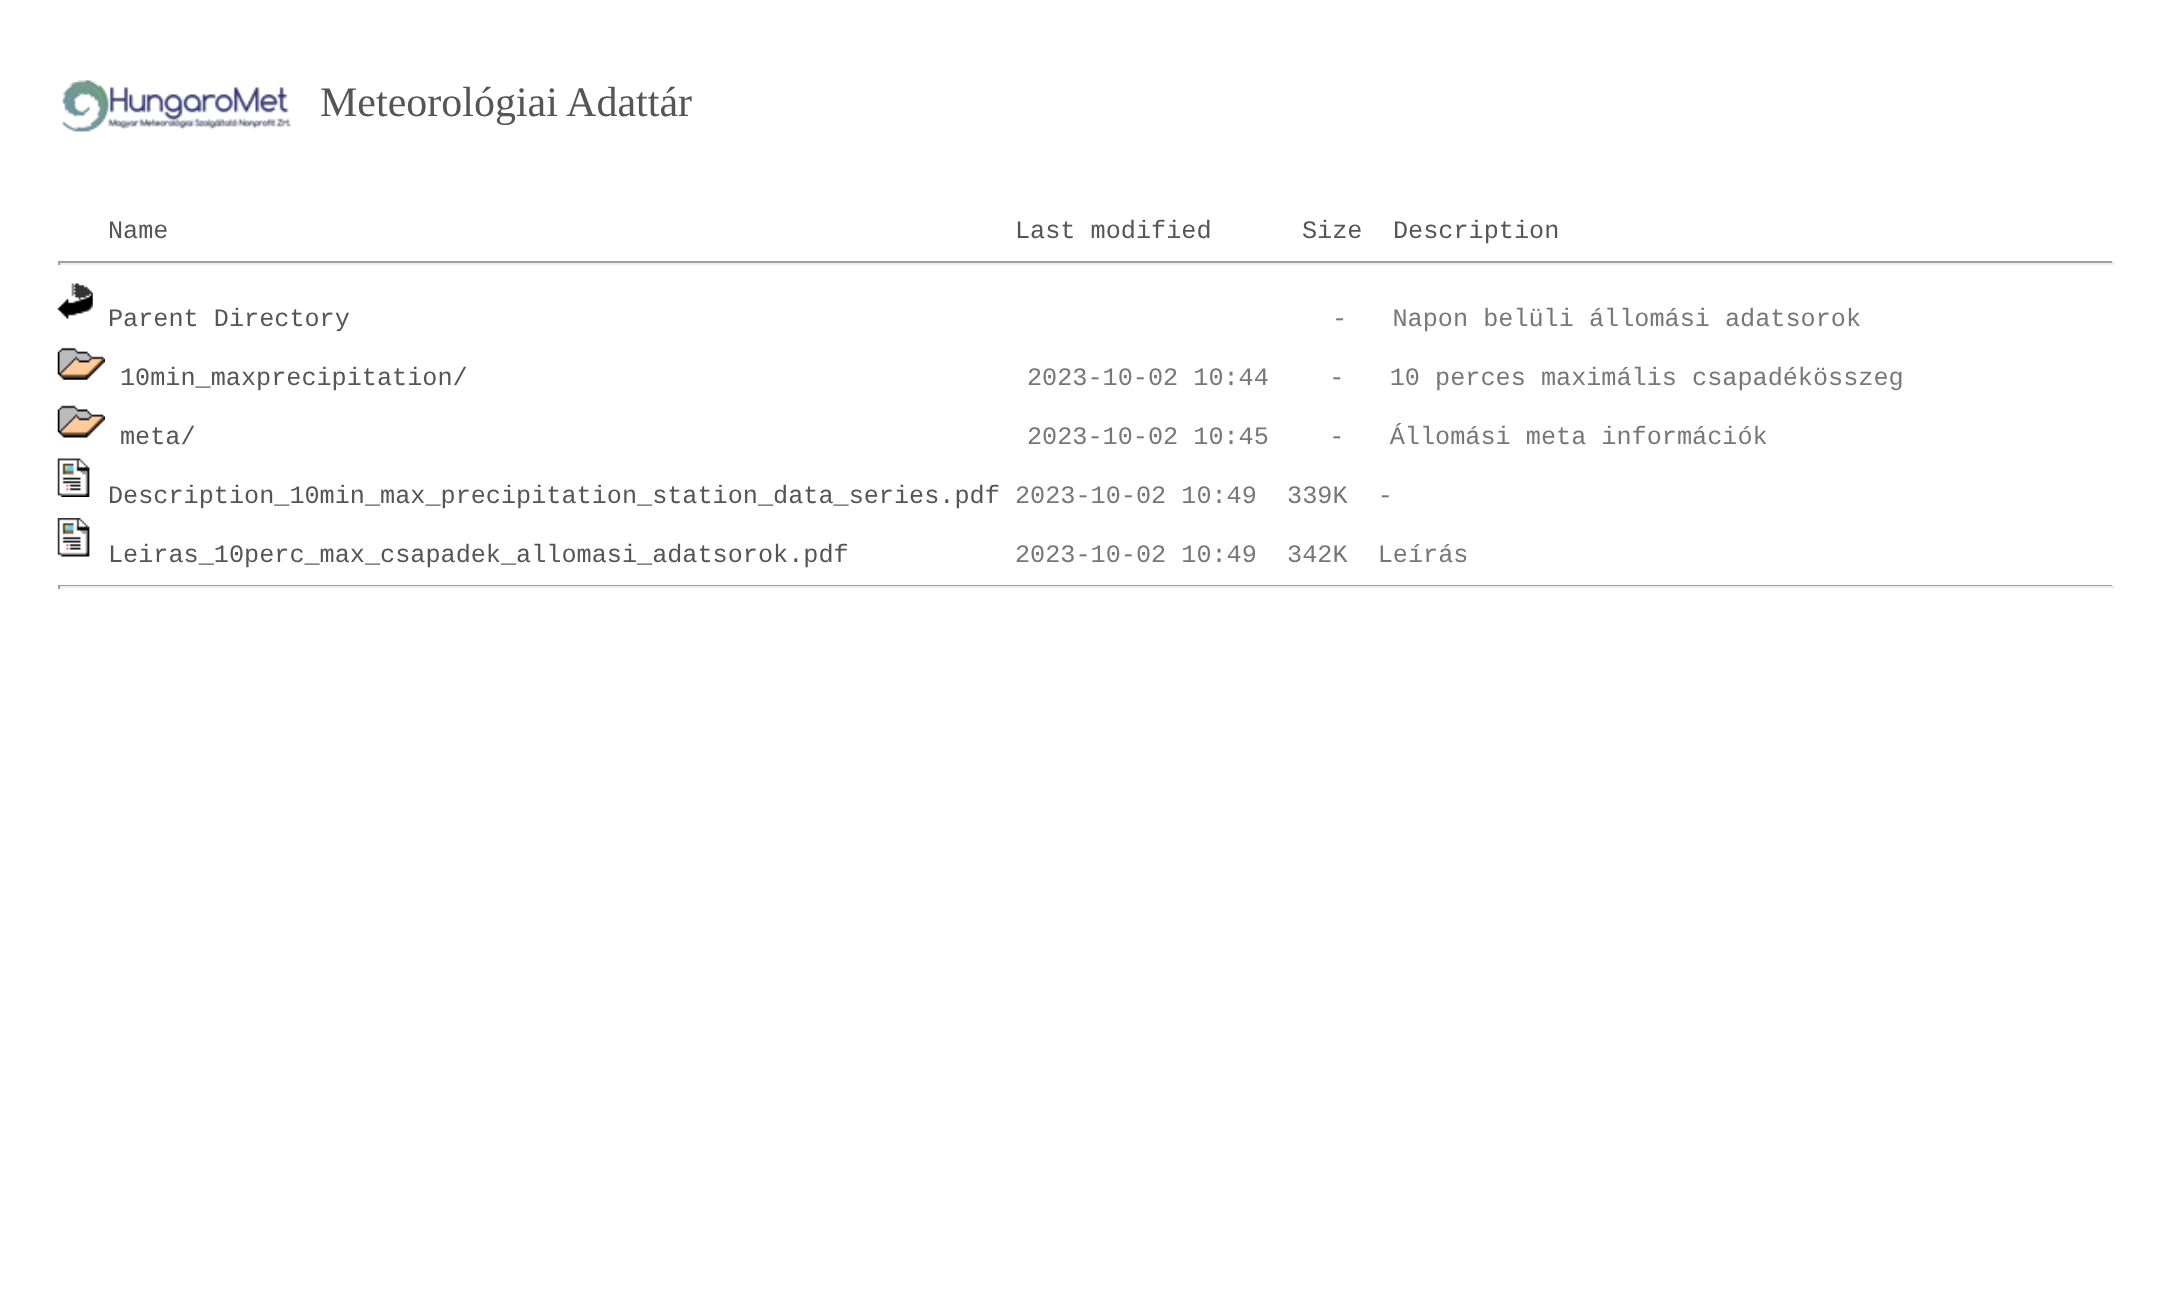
(async () => {
const canvas = document.querySelector("canvas")
canvas.width = 2171
canvas.height = 1304
const c = canvas.getContext("2d")
c.miterLimit = 4
c.fontKerning = "normal"
function T(s,x,y){c.fillText(s,x,y)}
function R(x,y,w,h){c.fillRect(x,y,w,h)}
async function I(src,x,y,w,h){const img=new Image();img.src=src;await img.decode();c.drawImage(img,x,y,w,h)}
c.fillStyle="#fff"
R(0,0,2171,1304)
await I("1.png",62,80,229,52)
c.font="42px Liberation Serif"
c.fillStyle="#555"
T("Meteorológiai Adattár",320,116)
c.font="25.2px Liberation Mono"
T("Name",108,238)
T("Last modified",1015,238)
T("Size",1302,238)
T("Description",1393,238)
c.fillStyle="#9f9f9f"
R(58,261,2056,2)
c.fillStyle="#eee"
R(2112,261,2,4)
R(58,263,2056,2)
c.fillStyle="#9f9f9f"
R(58,261,2,4)
await I("2.png",57,283,36,36)
c.fillStyle="#555"
T("Parent Directory",108,326)
c.fillStyle="#777"
T("-   Napon belüli állomási adatsorok",1332,326)
await I("3.png",57,347,48,33)
c.fillStyle="#555"
T("10min_maxprecipitation/",120,385)
c.fillStyle="#777"
T("2023-10-02 10:44    -   10 perces maximális csapadékösszeg",1027,385)
await I("4.png",57,405,48,33)
c.fillStyle="#555"
T("meta/",120,444)
c.fillStyle="#777"
T("2023-10-02 10:45    -   Állomási meta információk",1027,444)
await I("5.png",57,458,33,39)
c.fillStyle="#555"
T("Description_10min_max_precipitation_station_data_series.pdf",108,503)
c.fillStyle="#777"
T("2023-10-02 10:49  339K  -",1015,503)
await I("6.png",57,518,33,39)
c.fillStyle="#555"
T("Leiras_10perc_max_csapadek_allomasi_adatsorok.pdf",108,562)
c.fillStyle="#777"
T("2023-10-02 10:49  342K  Leírás",1015,562)
c.fillStyle="#9f9f9f"
R(58,585,2056,1)
c.fillStyle="#eee"
R(2112,585,2,4)
R(58,586,2056,2)
c.fillStyle="#9f9f9f"
R(58,585,2,4)
})()
